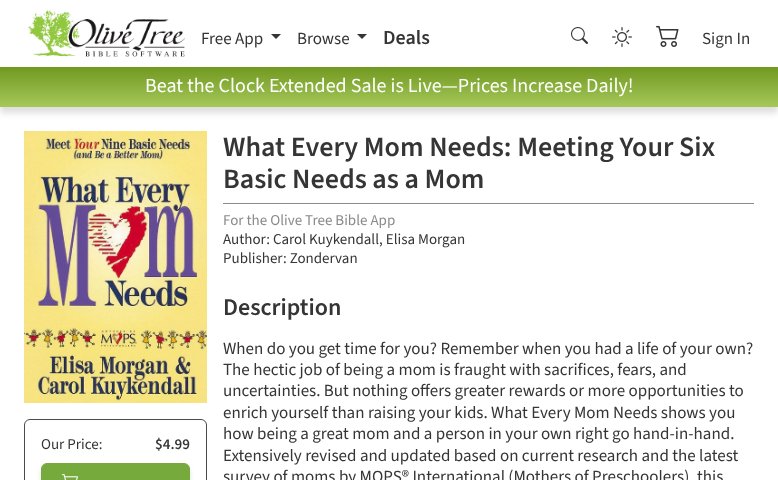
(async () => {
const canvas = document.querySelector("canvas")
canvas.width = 778
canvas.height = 480
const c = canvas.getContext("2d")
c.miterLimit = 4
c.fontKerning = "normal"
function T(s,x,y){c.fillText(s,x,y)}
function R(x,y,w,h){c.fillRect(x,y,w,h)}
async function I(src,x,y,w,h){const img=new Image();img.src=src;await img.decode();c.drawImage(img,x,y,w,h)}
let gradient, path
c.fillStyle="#fff"
R(0,0,778,480)
await I("1.png",28,9,157,48)
c.font="17px 'Source Sans 3'"
c.fillStyle="#353535"
T("Free App",201,44)
path = new Path2D("M271 34h10l-5 5z")
c.fill(path)
T("Browse",297,44)
path = new Path2D("M357 34h10l-5 5z")
c.fill(path)
c.font="600 20px 'Source Sans 3'"
T("Deals",383,44)
await I("2.png",571,27,17,17)
await I("3.png",612,27,20,20)
await I("4.png",656,25,23,22)
c.font="17px 'Source Sans 3'"
T("Sign In",702,44)
c.fillStyle="#00000021"
c.filter="blur(3px)"
c.beginPath()
c.rect(0,73,778,40)
c.fill()
c.filter="none"
gradient = c.createLinearGradient(389,67,389,107)
gradient.addColorStop(0,"#719920")
gradient.addColorStop(1,"#a6c85b")
c.fillStyle = gradient
R(0,67,778,40)
c.font="20px 'Source Sans 3'"
c.fillStyle="#fff"
T("Beat the Clock Extended Sale is Live—Prices Increase Daily!",145,92)
await I("5.png",24,131,183,272)
c.beginPath()
c.roundRect(24.5,419.5,182,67,5.5)
c.strokeStyle="#4b4b4b"
c.stroke()
c.font="15px 'Source Sans 3'"
c.fillStyle="#353535"
T("Our Price:",41,449)
c.font="600 15px 'Source Sans 3'"
T("$4.99",155,449)
c.fillStyle="#00000021"
c.filter="blur(2px)"
c.beginPath()
c.roundRect(41,467,149,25,6)
c.fill()
c.filter="none"
c.fillStyle="#77aa3c"
c.beginPath()
c.roundRect(41.5,463.5,148,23,5.5)
c.fill()
c.strokeStyle="#77aa3c"
c.stroke()
await I("6.png",62,474,16,6)
c.font="600 28px 'Source Sans 3'"
c.fillStyle="#353535"
T("What Every Mom Needs: Meeting Your Six",223,156)
T("Basic Needs as a Mom",223,188)
c.fillStyle="#8a8a8a"
R(223,203,531,1)
c.font="15px 'Source Sans 3'"
T("For the Olive Tree Bible App",223,225)
c.fillStyle="#353535"
T("Author: Carol Kuykendall, Elisa Morgan",223,244)
T("Publisher: Zondervan",223,263)
c.font="600 24px 'Source Sans 3'"
T("Description",223,315)
c.font="17px 'Source Sans 3'"
T("When do you get time for you? Remember when you had a life of your own?",223,354)
T("The hectic job of being a mom is fraught with sacrifices, fears, and",223,375)
T("uncertainties. But nothing offers greater rewards or more opportunities to",223,396)
T("enrich yourself than raising your kids. What Every Mom Needs shows you",223,418)
T("how being a great mom and a person in your own right go hand-in-hand.",223,439)
T("Extensively revised and updated based on current research and the latest",223,461)
T("survey of moms by MOPS® International (Mothers of Preschoolers), this",223,482)
})()
